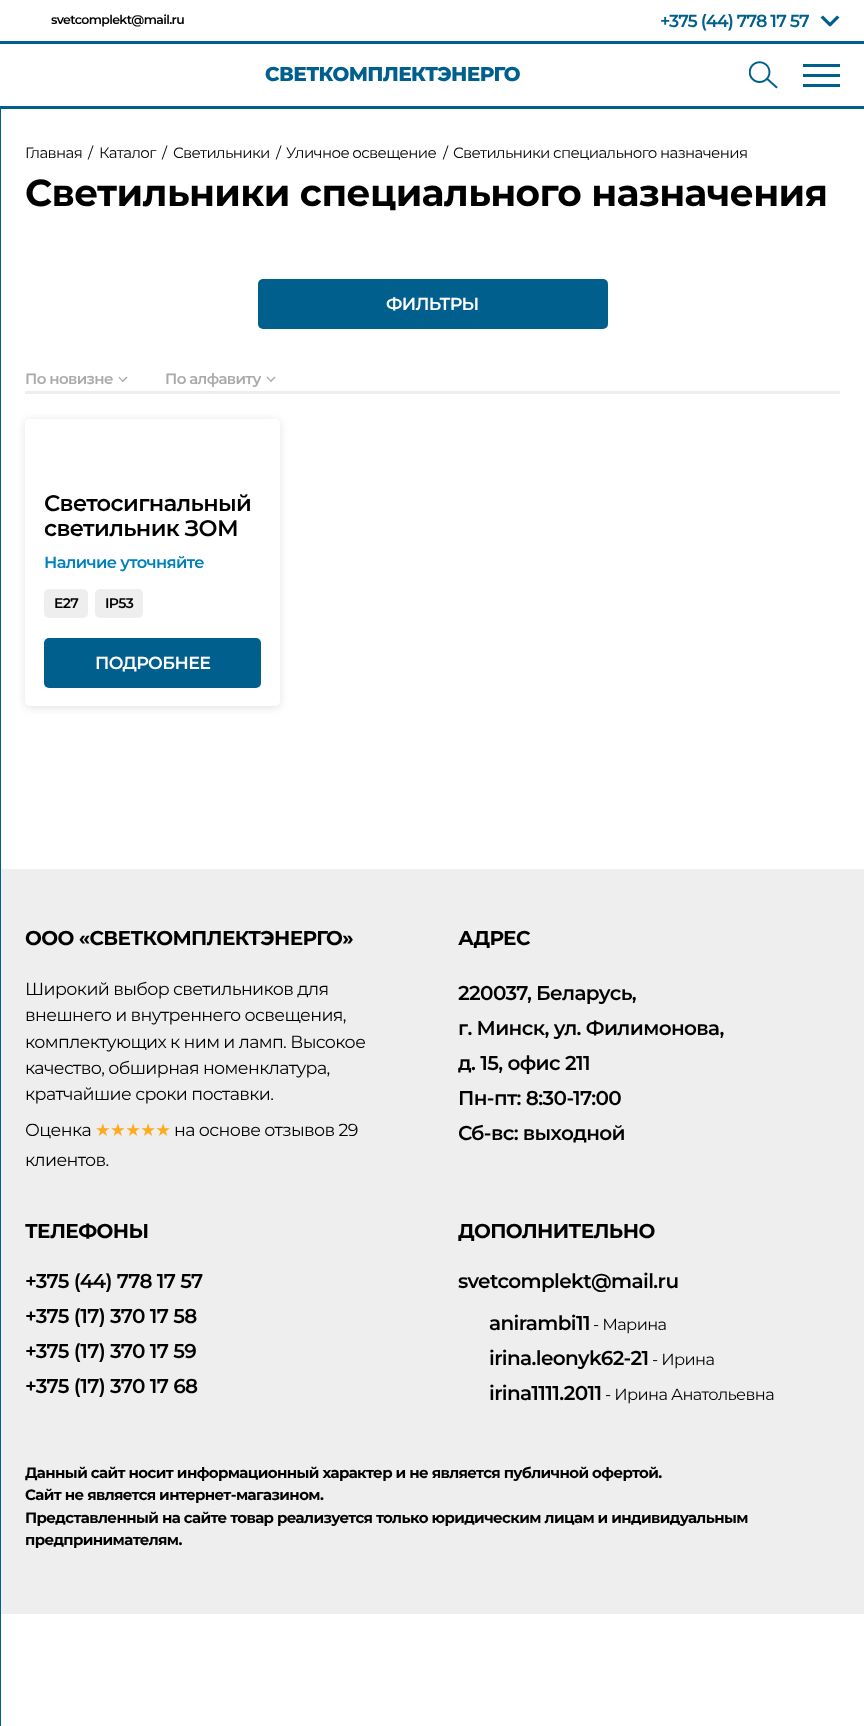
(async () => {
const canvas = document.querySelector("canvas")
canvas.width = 864
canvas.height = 1726
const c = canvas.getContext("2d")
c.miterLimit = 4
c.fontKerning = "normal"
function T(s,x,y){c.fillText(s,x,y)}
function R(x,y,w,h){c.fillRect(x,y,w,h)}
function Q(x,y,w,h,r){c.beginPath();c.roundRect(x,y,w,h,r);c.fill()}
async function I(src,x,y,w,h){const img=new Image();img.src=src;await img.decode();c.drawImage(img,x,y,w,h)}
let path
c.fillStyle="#fff"
R(0,0,864,1726)
c.fillStyle="#005f8c"
R(0,41,864,3)
c.letterSpacing="-0.62px"
c.font="600 12.5px Montserrat"
c.fillStyle="#000"
T("svetcomplekt@mail.ru",51,24)
c.letterSpacing="-0.9px"
c.font="600 17.5px Montserrat"
c.fillStyle="#005f8c"
T("+375 (44) 778 17 57",660,27)
path = new Path2D("M828 24.5l9-9l2.5 2l-9 9z")
c.fill(path)
path = new Path2D("M823 15.5l9 9l-2.5 2l-9-9z")
c.fill(path)
R(0,106,864,3)
c.letterSpacing="-0.62px"
c.font="800 20px Montserrat"
T("СВЕТКОМПЛЕКТЭНЕРГО",265,81)
await I("1.png",749,61,29,28)
R(803,74,37,3)
R(803,64,37,3)
R(803,84,37,3)
R(0,109,1,1617)
c.font="15px Montserrat"
c.fillStyle="#000"
T("Главная",25,158)
T("/",88,158)
T("Каталог",99,158)
T("/",162,158)
T("Светильники",173,158)
T("/",276,158)
T("Уличное освещение",286,158)
T("/",443,158)
T("Светильники специального назначения",453,158)
c.font="bold 37.5px Montserrat"
T("Светильники специального назначения",25,206)
c.fillStyle="#005f8c"
Q(258,279,350,50,5)
c.font="600 17.5px Montserrat"
c.fillStyle="#fff"
T("ФИЛЬТРЫ",386,310)
c.fillStyle="#eee"
R(25,391,815,3)
c.font="600 15px Montserrat"
c.fillStyle="#aaa"
T("По новизне",25,384)
path = new Path2D("M122 381l4.5-4.5l1 1l-4.5 4.5z")
c.fill(path)
path = new Path2D("M119 376.5l4.5 4.5l-1 1l-4-4.5z")
c.fill(path)
T("По алфавиту",165,384)
path = new Path2D("M270 381l4.5-4.5l1 1l-4.5 4.5z")
c.fill(path)
path = new Path2D("M267.5 376.5l4 4.5l-.5 1l-4.5-4.5z")
c.fill(path)
c.save()
path = new Path2D("M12 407h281v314h-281zm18 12h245c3 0 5 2 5 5v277c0 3-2 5-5 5h-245c-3 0-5-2-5-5v-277c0-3 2-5 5-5z")
c.clip(path,"evenodd")
c.fillStyle="#3d415426"
c.filter="blur(4px)"
c.beginPath()
c.roundRect(25,420,255,288,5)
c.fill()
c.filter="none"
c.restore()
c.font="600 22.5px Montserrat"
c.fillStyle="#000"
T("Светосигнальный",44,511)
T("светильник ЗОМ",44,536)
c.font="600 16.25px Montserrat"
c.fillStyle="#0080bd"
T("Наличие уточняйте",44,568)
c.fillStyle="#eee"
Q(44,589,44,29,5)
c.font="600 14px Montserrat"
c.fillStyle="#000"
T("E27",54,608)
c.fillStyle="#eee"
Q(95,589,48,29,5)
c.fillStyle="#000"
T("IP53",105,608)
c.fillStyle="#005f8c"
Q(44,638,217,50,5)
c.font="600 17.5px Montserrat"
c.fillStyle="#fff"
T("ПОДРОБНЕЕ",95,669)
c.fillStyle="#eee"
R(1,869,863,745)
c.font="bold 20px Montserrat"
c.fillStyle="#000"
T("ООО «СВЕТКОМПЛЕКТЭНЕРГО»",25,945)
c.font="17.5px Montserrat"
T("Широкий выбор светильников для",25,995)
T("внешнего и внутреннего освещения,",25,1021)
T("комплектующих к ним и ламп. Высокое",25,1048)
T("качество, обширная номенклатура,",25,1074)
T("кратчайшие сроки поставки.",25,1100)
T("Оценка",25,1136)
c.font="17.5px DejaVu Sans"
c.fillStyle="#ffaa1f"
T("★★★★★",95,1136)
c.font="17.5px Montserrat"
c.fillStyle="#000"
T("на основе отзывов 29",174,1136)
T("клиентов.",25,1166)
c.font="bold 20px Montserrat"
T("АДРЕС",458,945)
c.font="600 20px Montserrat"
T("220037, Беларусь,",458,1000)
T("г. Минск, ул. Филимонова,",458,1035)
T("д. 15, офис 211",458,1070)
T("Пн-пт: 8:30-17:00",458,1105)
T("Сб-вс: выходной",458,1140)
c.font="bold 20px Montserrat"
T("ТЕЛЕФОНЫ",25,1238)
c.font="600 20px Montserrat"
T("+375 (44) 778 17 57",25,1288)
T("+375 (17) 370 17 58",25,1323)
T("+375 (17) 370 17 59",25,1358)
T("+375 (17) 370 17 68",25,1393)
c.font="bold 20px Montserrat"
T("ДОПОЛНИТЕЛЬНО",458,1238)
c.font="600 20px Montserrat"
T("svetcomplekt@mail.ru",458,1288)
T("anirambi11",489,1330)
c.font="16.25px Montserrat"
T("- Марина",593,1330)
c.font="600 20px Montserrat"
T("irina.leonyk62-21",489,1365)
c.font="16.25px Montserrat"
T("- Ирина",652,1365)
c.font="600 20px Montserrat"
T("irina1111.2011",489,1400)
c.font="16.25px Montserrat"
T("- Ирина Анатольевна",605,1400)
c.font="bold 15px Montserrat"
T("Данный сайт носит информационный характер и не является публичной офертой.",25,1478)
T("Сайт не является интернет-магазином.",25,1500)
T("Представленный на сайте товар реализуется только юридическим лицам и индивидуальным",25,1523)
T("предпринимателям.",25,1545)
})()
